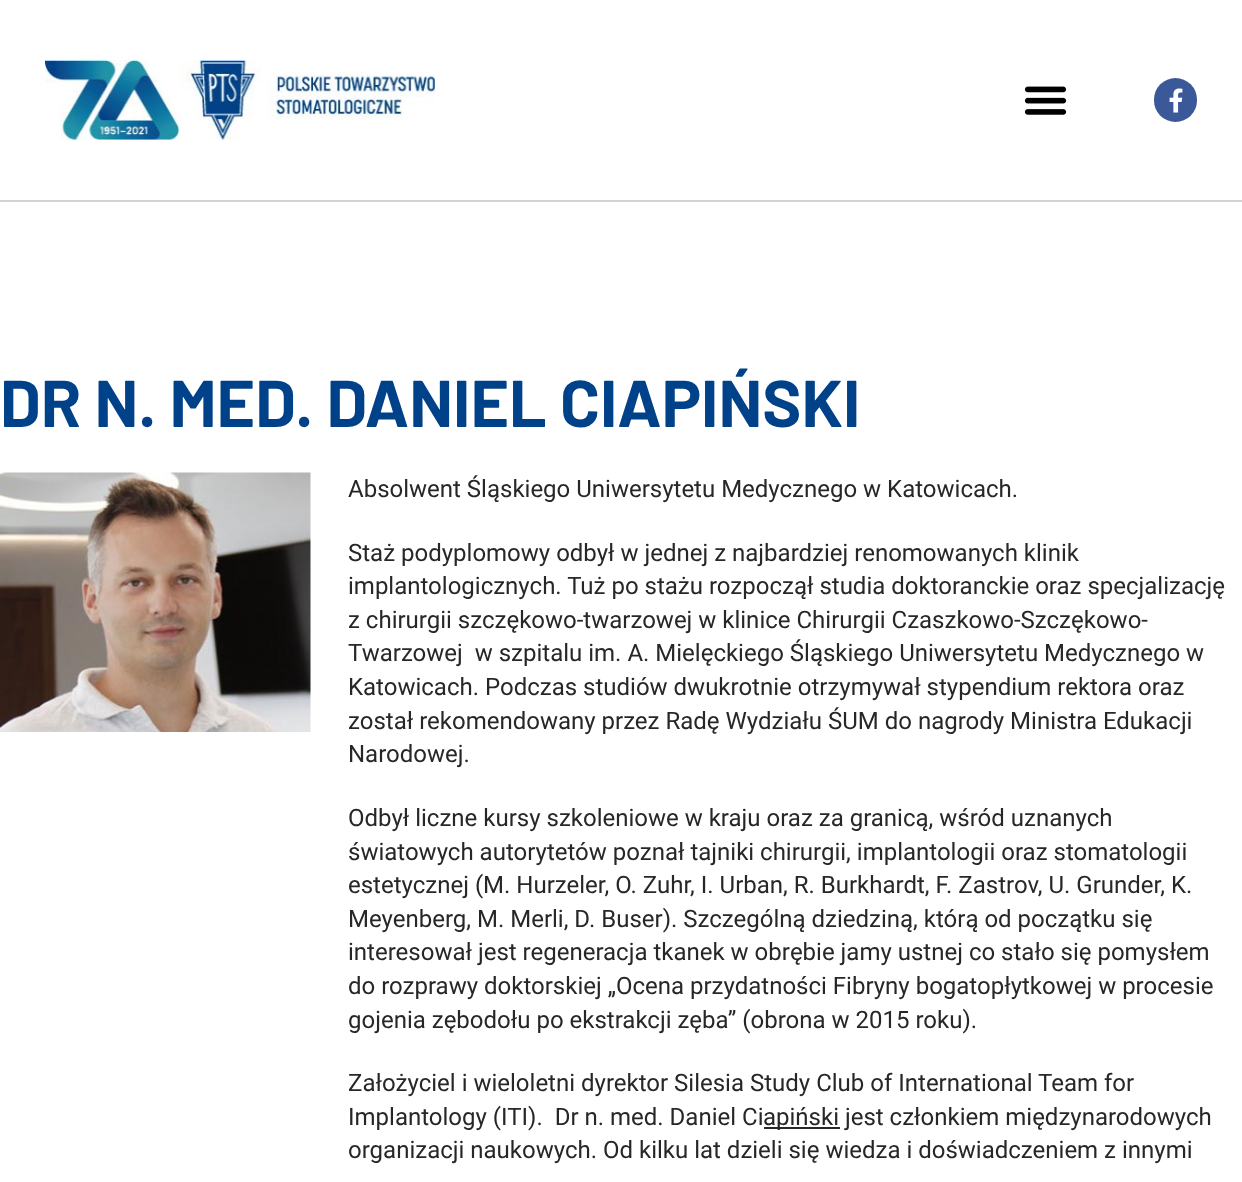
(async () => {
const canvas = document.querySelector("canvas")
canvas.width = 1242
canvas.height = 1182
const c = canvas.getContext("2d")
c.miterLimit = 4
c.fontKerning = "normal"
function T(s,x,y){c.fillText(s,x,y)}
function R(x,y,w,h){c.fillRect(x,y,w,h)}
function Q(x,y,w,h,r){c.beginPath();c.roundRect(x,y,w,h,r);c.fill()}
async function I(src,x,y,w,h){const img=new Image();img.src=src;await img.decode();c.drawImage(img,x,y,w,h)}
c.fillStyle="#fff"
R(0,0,1242,1182)
c.fillStyle="#d3d3d3"
R(0,200,1242,2)
await I("1.png",45,60,390,80)
await I("2.png",1024,86,43,29)
c.fillStyle="#3b5998"
Q(1154,78,43,44,21.5)
await I("3.png",1169,88,14,25)
c.font="bold 66px Barlow"
c.fillStyle="#004289"
T("DR N. MED. DANIEL CIAPIŃSKI",0,427)
await I("4.png",0,472,311,260)
c.font="24px Roboto"
c.fillStyle="#272727"
T("Absolwent Śląskiego Uniwersytetu Medycznego w Katowicach.",348,497)
T("Staż podyplomowy odbył w jednej z najbardziej renomowanych klinik",348,561)
T("implantologicznych. Tuż po stażu rozpoczął studia doktoranckie oraz specjalizację",348,594)
T("z chirurgii szczękowo-twarzowej w klinice Chirurgii Czaszkowo-Szczękowo-",348,628)
T("Twarzowej  w szpitalu im. A. Mielęckiego Śląskiego Uniwersytetu Medycznego w",348,661)
T("Katowicach. Podczas studiów dwukrotnie otrzymywał stypendium rektora oraz",348,695)
T("został rekomendowany przez Radę Wydziału ŚUM do nagrody Ministra Edukacji",348,729)
T("Narodowej.",348,762)
T("Odbył liczne kursy szkoleniowe w kraju oraz za granicą, wśród uznanych",348,826)
T("światowych autorytetów poznał tajniki chirurgii, implantologii oraz stomatologii",348,860)
T("estetycznej (M. Hurzeler, O. Zuhr, I. Urban, R. Burkhardt, F. Zastrov, U. Grunder, K.",348,893)
T("Meyenberg, M. Merli, D. Buser). Szczególną dziedziną, którą od początku się",348,927)
T("interesował jest regeneracja tkanek w obrębie jamy ustnej co stało się pomysłem",348,960)
T("do rozprawy doktorskiej „Ocena przydatności Fibryny bogatopłytkowej w procesie",348,994)
T("gojenia zębodołu po ekstrakcji zęba” (obrona w 2015 roku).",348,1028)
T("Założyciel i wieloletni dyrektor Silesia Study Club of International Team for",348,1091)
T("Implantology (ITI).  Dr n. med. Daniel Ci",348,1125)
R(764,1127,76,2)
T("apiński jest członkiem międzynarodowych",763,1125)
T("organizacji naukowych. Od kilku lat dzieli się wiedza i doświadczeniem z innymi",348,1158)
})()
